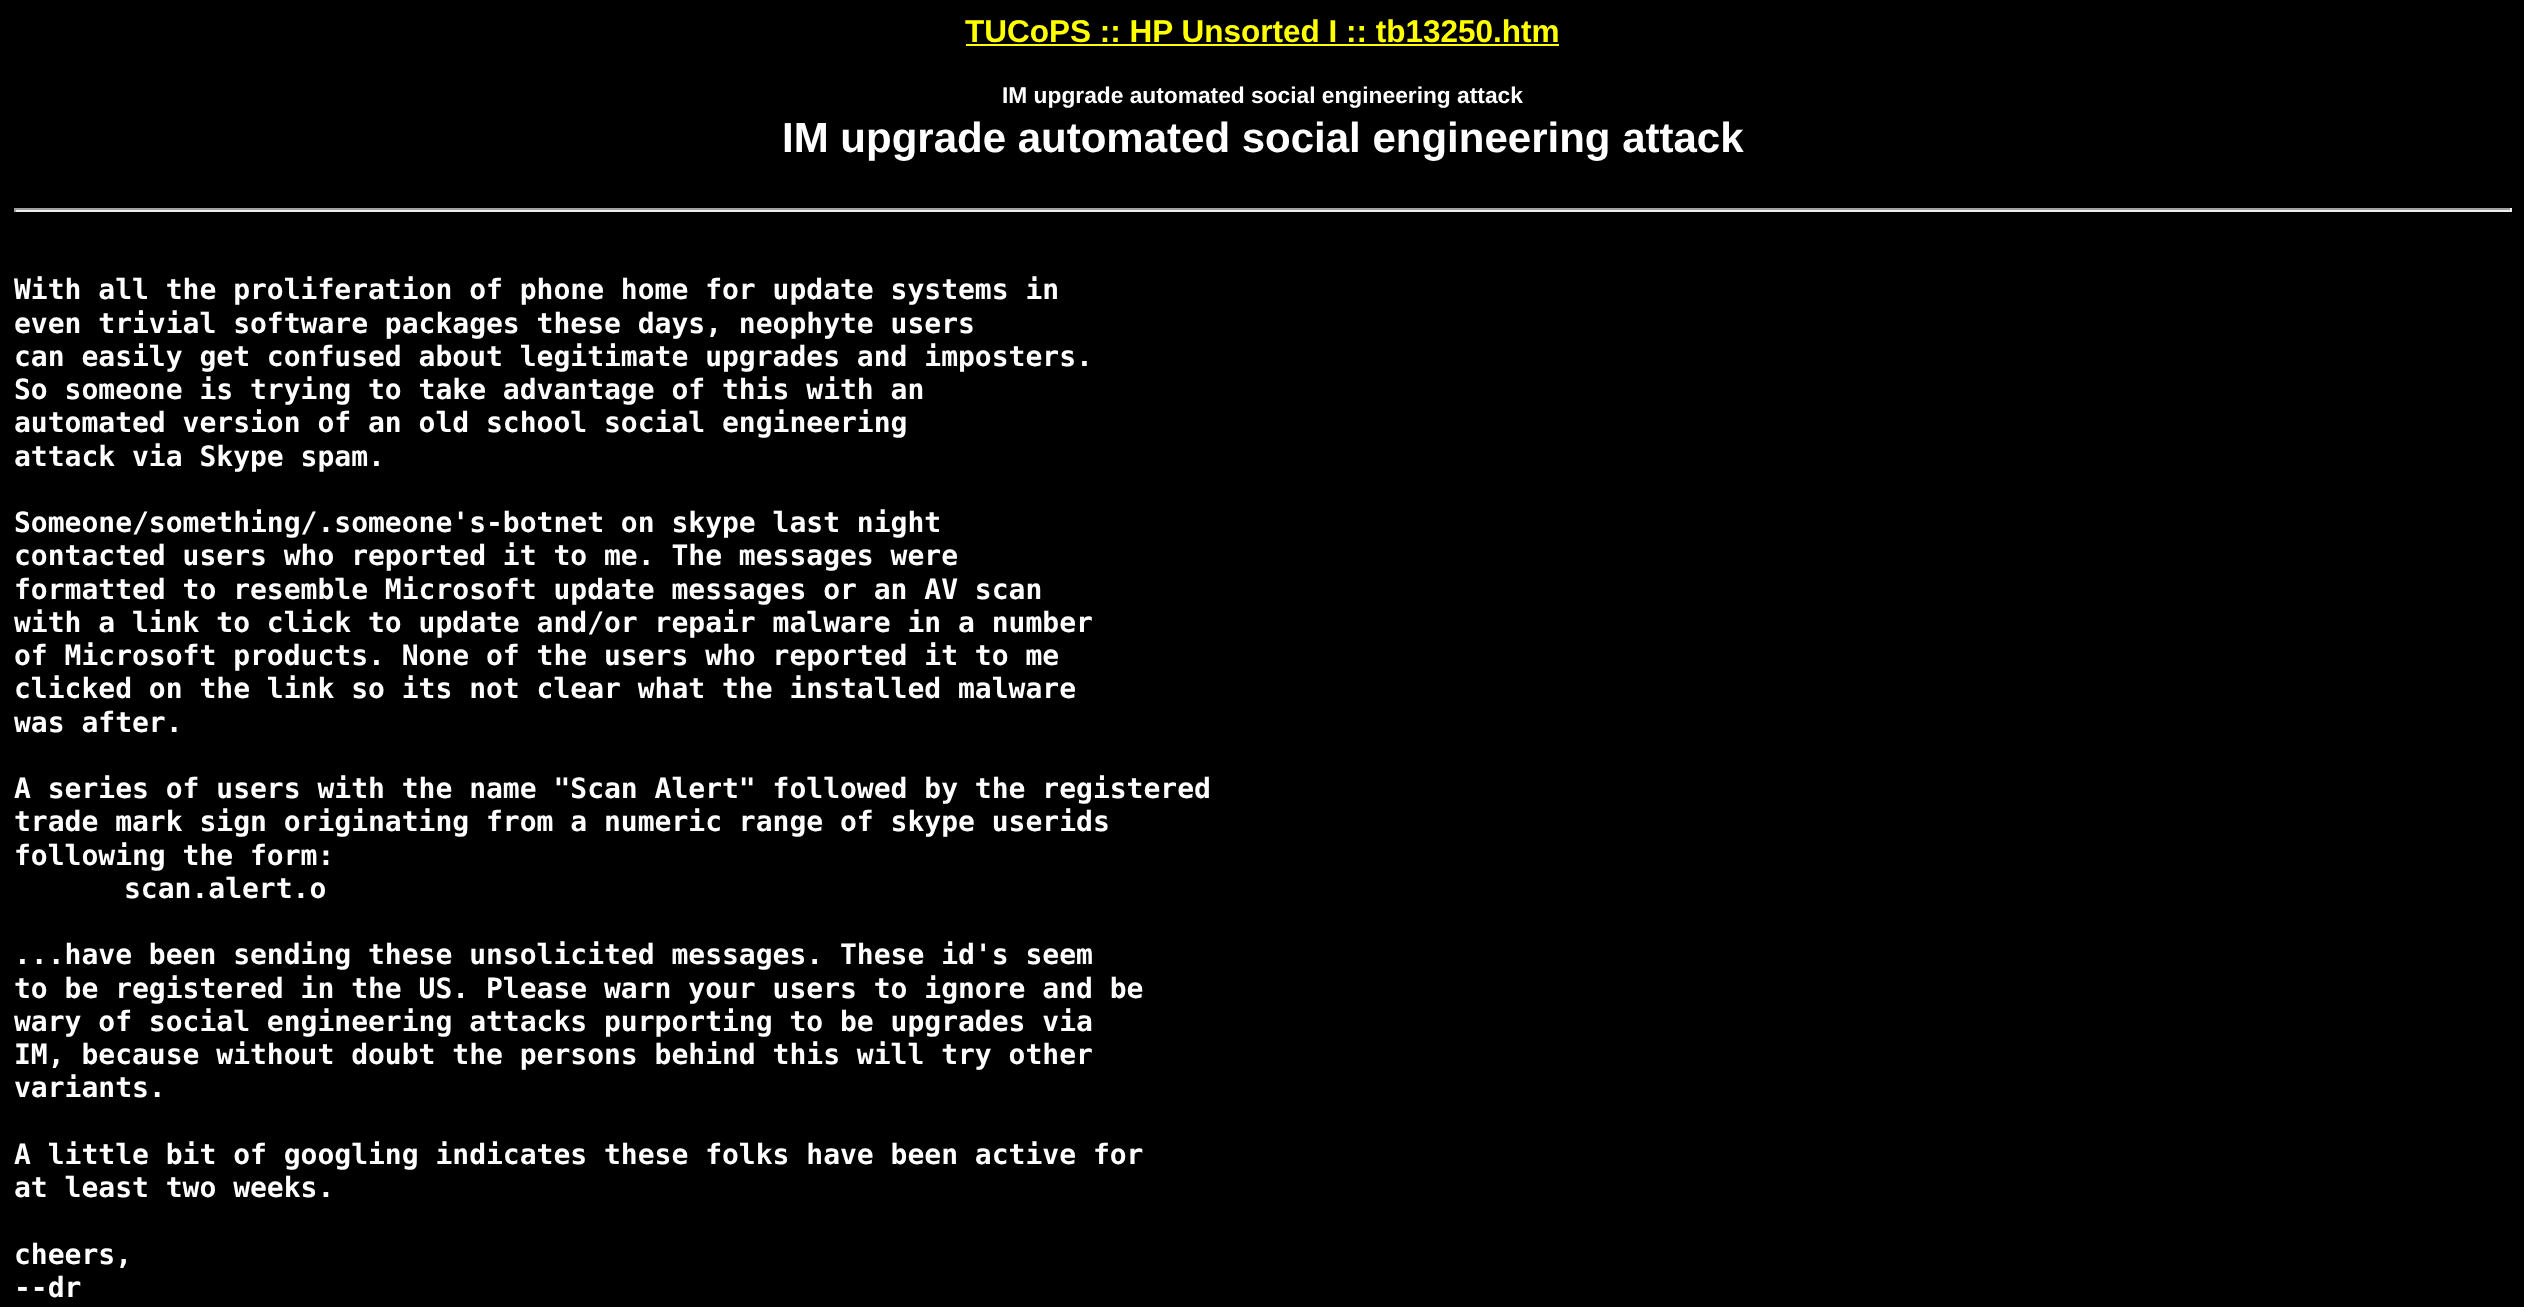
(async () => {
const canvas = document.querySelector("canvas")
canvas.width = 2524
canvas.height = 1307
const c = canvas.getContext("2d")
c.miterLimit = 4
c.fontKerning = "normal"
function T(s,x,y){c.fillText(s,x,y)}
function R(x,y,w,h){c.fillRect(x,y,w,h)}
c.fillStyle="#000"
R(0,0,2524,1307)
c.font="bold 31.5px Liberation Sans"
c.fillStyle="#ff0"
T("TUCoPS :: HP Unsorted I :: tb13250.htm",965,42)
R(966,44,593,2)
c.font="bold 22.75px Liberation Sans"
c.fillStyle="#fff"
T("IM upgrade automated social engineering attack",1002,103)
c.font="bold 42px Liberation Sans"
T("IM upgrade automated social engineering attack",782,152)
c.fillStyle="#9f9f9f"
R(14,208,2497,2)
c.fillStyle="#eee"
R(2510,208,2,4)
R(14,210,2497,2)
c.fillStyle="#9f9f9f"
R(14,208,2,4)
c.font="bold 28px DejaVu Sans Mono"
c.fillStyle="#fff"
T("With all the proliferation of phone home for update systems in",14,299)
T("even trivial software packages these days, neophyte users",14,333)
T("can easily get confused about legitimate upgrades and imposters.",14,366)
T("So someone is trying to take advantage of this with an",14,399)
T("automated version of an old school social engineering",14,432)
T("attack via Skype spam.",14,466)
T("Someone/something/.someone's-botnet on skype last night",14,532)
T("contacted users who reported it to me. The messages were",14,565)
T("formatted to resemble Microsoft update messages or an AV scan",14,599)
T("with a link to click to update and/or repair malware in a number",14,632)
T("of Microsoft products. None of the users who reported it to me",14,665)
T("clicked on the link so its not clear what the installed malware",14,698)
T("was after.",14,732)
T("A series of users with the name \"Scan Alert\" followed by the registered",14,798)
T("trade mark sign originating from a numeric range of skype userids",14,831)
T("following the form:",14,865)
T("scan.alert.o",124,898)
T("...have been sending these unsolicited messages. These id's seem",14,964)
T("to be registered in the US. Please warn your users to ignore and be",14,998)
T("wary of social engineering attacks purporting to be upgrades via",14,1031)
T("IM, because without doubt the persons behind this will try other",14,1064)
T("variants.",14,1097)
T("A little bit of googling indicates these folks have been active for",14,1164)
T("at least two weeks.",14,1197)
T("cheers,",14,1264)
T("--dr",14,1297)
})()
